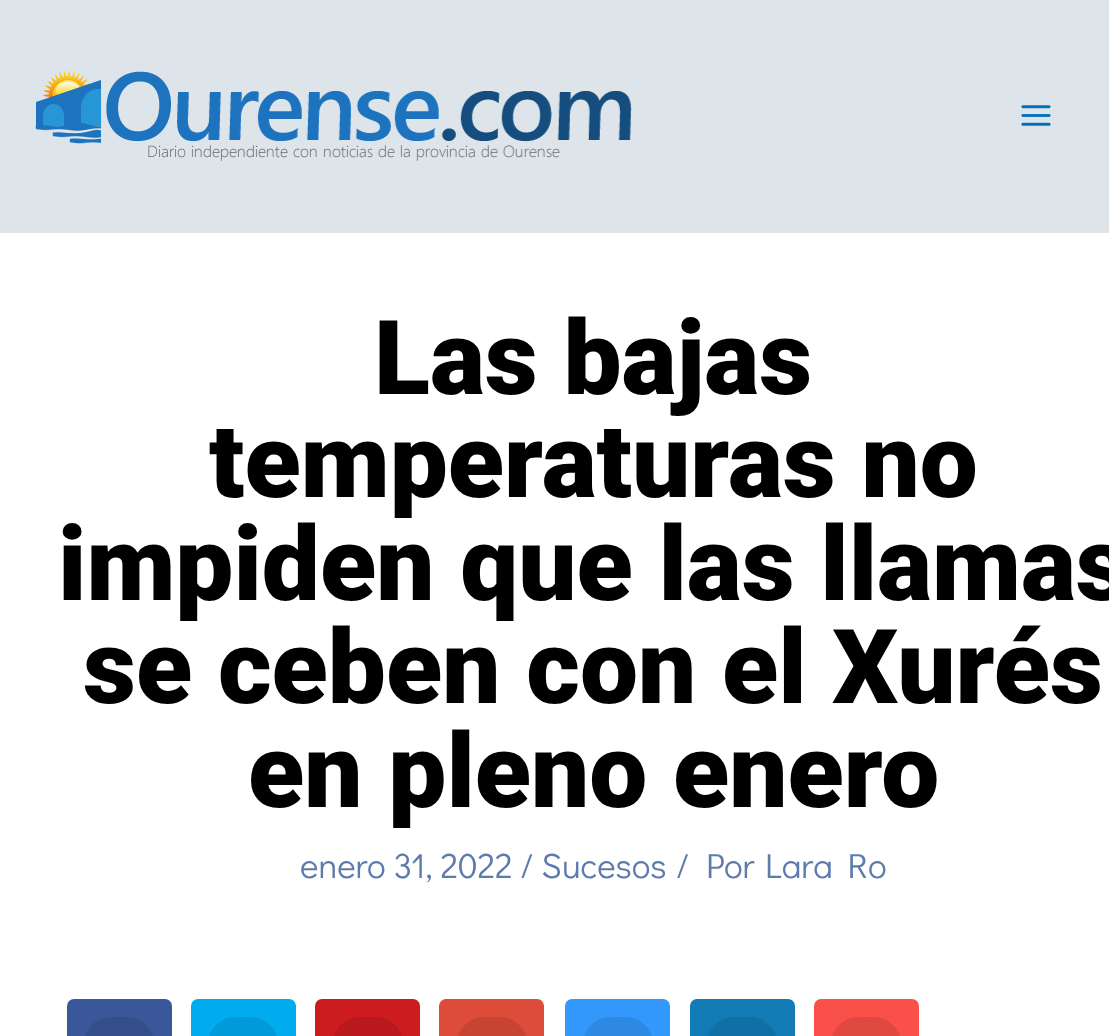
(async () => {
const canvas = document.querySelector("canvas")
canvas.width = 1109
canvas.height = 1036
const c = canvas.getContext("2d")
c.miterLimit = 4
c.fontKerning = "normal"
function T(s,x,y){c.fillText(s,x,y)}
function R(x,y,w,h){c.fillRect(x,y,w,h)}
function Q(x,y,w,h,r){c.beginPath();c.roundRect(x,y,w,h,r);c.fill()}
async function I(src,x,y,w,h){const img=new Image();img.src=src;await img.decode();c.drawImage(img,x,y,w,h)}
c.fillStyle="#fff"
R(0,0,1109,1036)
c.fillStyle="#dde4ea"
R(0,0,1109,231)
c.fillStyle="#e5e5e5"
R(0,231,1109,2)
await I("1.png",35,70,597,91)
await I("2.png",1021,105,30,21)
c.font="900 103.25px Roboto"
c.fillStyle="#000"
T("Las bajas",374,394)
T("temperaturas no",209,497)
T("impiden que las llamas",58,600)
T("se ceben con el Xurés",83,703)
T("en pleno enero",248,807)
c.font="35px Didact Gothic"
c.fillStyle="#5d7bac"
T("enero 31, 2022 / Sucesos",300,878)
c.wordSpacing="2px"
T("/ Por",676,878)
c.wordSpacing="0px"
T("Lara Ro",765,878)
c.fillStyle="#3a579a"
Q(67,999,105,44,7)
c.fillStyle="#344e8b"
Q(84,1017,70,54,35)
c.fillStyle="#00abf0"
Q(191,999,105,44,7)
c.fillStyle="#009ad8"
Q(208,1017,70,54,35)
c.fillStyle="#cd1c1f"
Q(315,999,105,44,7)
c.fillStyle="#b9191c"
Q(333,1017,70,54,35)
c.fillStyle="#dd4b39"
Q(439,999,105,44,7)
c.fillStyle="#c74433"
Q(457,1017,70,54,35)
c.fillStyle="#3398fc"
Q(565,999,105,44,7)
c.fillStyle="#2e89e3"
Q(583,1017,70,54,35)
c.fillStyle="#127bb6"
Q(690,999,105,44,7)
c.fillStyle="#106fa4"
Q(707,1017,70,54,35)
c.fillStyle="#f95149"
Q(814,999,105,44,7)
c.fillStyle="#e04942"
Q(831,1017,70,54,35)
})()
